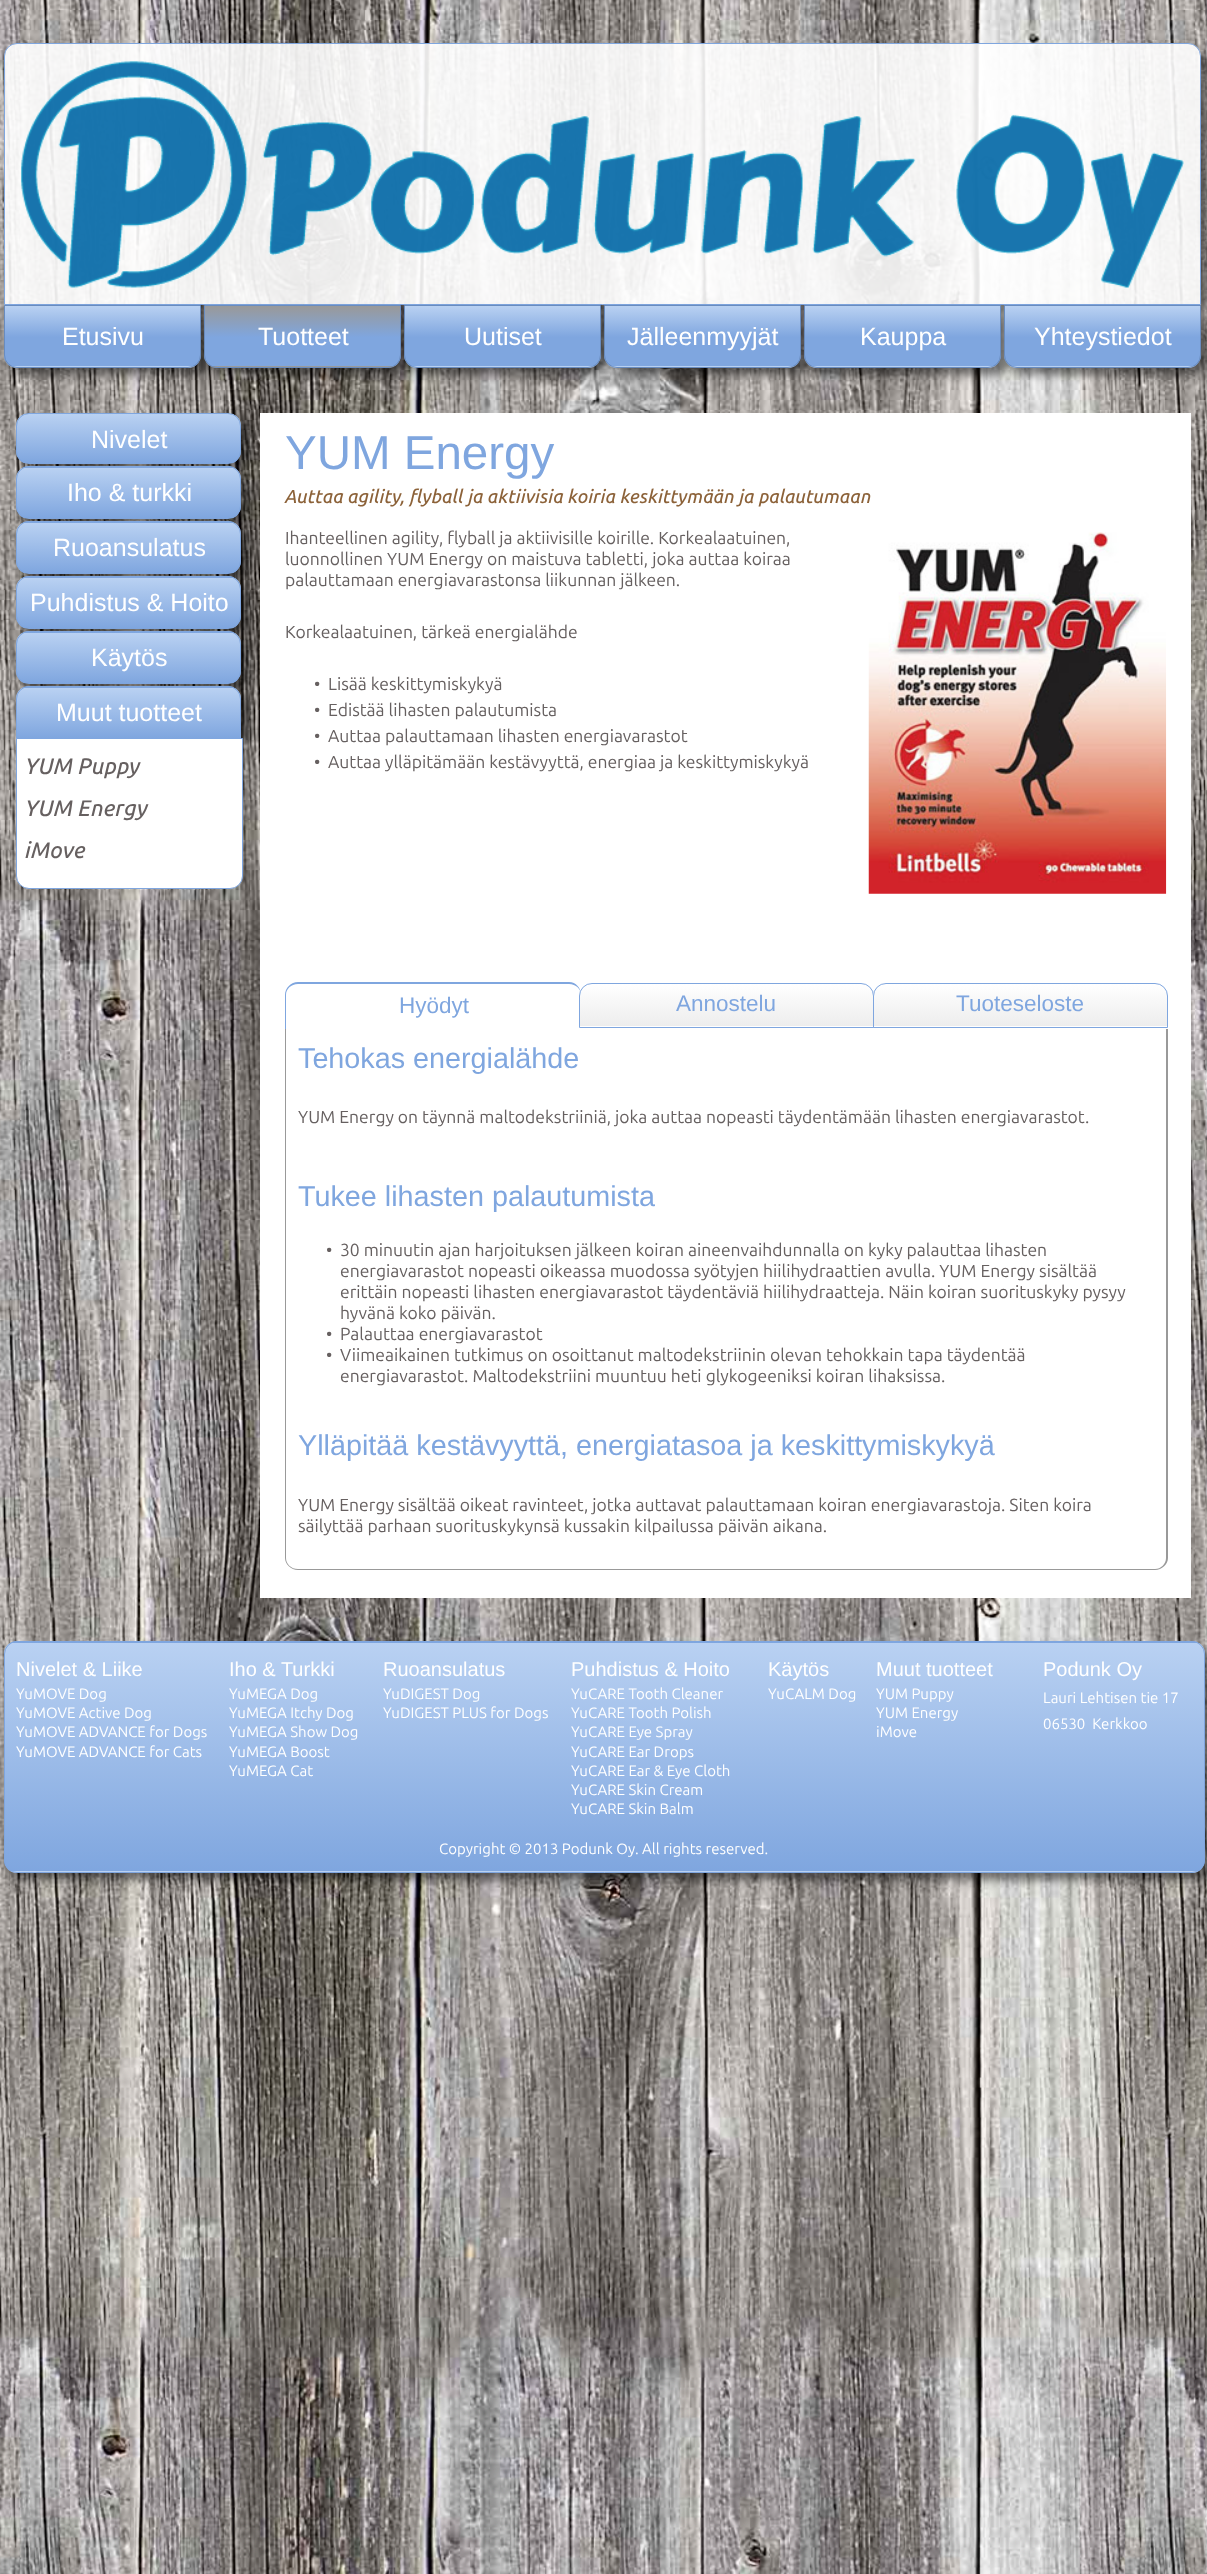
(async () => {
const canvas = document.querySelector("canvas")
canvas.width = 1207
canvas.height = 2574
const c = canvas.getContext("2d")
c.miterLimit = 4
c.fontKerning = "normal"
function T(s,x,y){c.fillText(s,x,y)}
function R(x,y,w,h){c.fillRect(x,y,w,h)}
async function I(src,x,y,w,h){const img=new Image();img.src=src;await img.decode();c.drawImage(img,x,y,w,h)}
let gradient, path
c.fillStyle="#fff"
R(0,0,1207,2574)
await I("1.png",0,0,1207,2574)
c.save()
path = new Path2D("M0 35h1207v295h-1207zm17 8h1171c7 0 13 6 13 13v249h-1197v-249c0-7 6-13 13-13z")
c.clip(path,"evenodd")
c.fillStyle="#00000073"
c.filter="blur(5px)"
c.beginPath()
c.roundRect(13,51,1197,263,13)
c.fill()
c.filter="none"
c.restore()
c.fillStyle="#ffffffe6"
c.beginPath()
c.roundRect(4.5,43.5,1196,261,[12.5,12.5,0,0])
c.fill()
c.strokeStyle="#7fa6df"
c.stroke()
await I("2.png",21,61,1163,227)
c.fillStyle="#00000080"
c.filter="blur(5px)"
c.beginPath()
c.roundRect(11,313,198,62,13)
c.fill()
c.filter="none"
c.save()
c.beginPath()
c.roundRect(4,305,197,63,[0,0,13,13])
c.clip()
gradient = c.createLinearGradient(103,306,103,366)
gradient.addColorStop(0,"#b9d1f2")
gradient.addColorStop(.52,"#7fa6df")
c.fillStyle = gradient
R(4,306,197,60)
gradient = c.createLinearGradient(103,366,103,426)
gradient.addColorStop(0,"#b9d1f2")
gradient.addColorStop(.52,"#7fa6df")
c.fillStyle = gradient
R(4,366,197,2)
c.restore()
c.beginPath()
c.roundRect(4.5,305.5,196,62,[0,0,12.5,12.5])
c.strokeStyle="#698cbf"
c.stroke()
c.font="25px Liberation Sans"
c.fillStyle="#fff"
T("Etusivu",62,345)
c.fillStyle="#00000080"
c.filter="blur(5px)"
c.beginPath()
c.roundRect(211,313,198,62,13)
c.fill()
c.filter="none"
c.save()
c.beginPath()
c.roundRect(204,305,197,63,[0,0,13,13])
c.clip()
gradient = c.createLinearGradient(303,306,303,366)
gradient.addColorStop(0,"#999")
gradient.addColorStop(.52,"#7fa6df")
c.fillStyle = gradient
R(204,306,197,60)
gradient = c.createLinearGradient(303,366,303,426)
gradient.addColorStop(0,"#999")
gradient.addColorStop(.52,"#7fa6df")
c.fillStyle = gradient
R(204,366,197,2)
c.restore()
c.beginPath()
c.roundRect(204.5,305.5,196,62,[0,0,12.5,12.5])
c.stroke()
c.fillStyle="#fff"
T("Tuotteet",258,345)
c.fillStyle="#00000080"
c.filter="blur(5px)"
c.beginPath()
c.roundRect(411,313,198,62,13)
c.fill()
c.filter="none"
c.save()
c.beginPath()
c.roundRect(404,305,197,63,[0,0,13,13])
c.clip()
gradient = c.createLinearGradient(503,306,503,366)
gradient.addColorStop(0,"#b9d1f2")
gradient.addColorStop(.52,"#7fa6df")
c.fillStyle = gradient
R(404,306,197,60)
gradient = c.createLinearGradient(503,366,503,426)
gradient.addColorStop(0,"#b9d1f2")
gradient.addColorStop(.52,"#7fa6df")
c.fillStyle = gradient
R(404,366,197,2)
c.restore()
c.beginPath()
c.roundRect(404.5,305.5,196,62,[0,0,12.5,12.5])
c.stroke()
c.fillStyle="#fff"
T("Uutiset",464,345)
c.fillStyle="#00000080"
c.filter="blur(5px)"
c.beginPath()
c.roundRect(611,313,198,62,13)
c.fill()
c.filter="none"
c.save()
c.beginPath()
c.roundRect(604,305,197,63,[0,0,13,13])
c.clip()
gradient = c.createLinearGradient(703,306,703,366)
gradient.addColorStop(0,"#b9d1f2")
gradient.addColorStop(.52,"#7fa6df")
c.fillStyle = gradient
R(604,306,197,60)
gradient = c.createLinearGradient(703,366,703,426)
gradient.addColorStop(0,"#b9d1f2")
gradient.addColorStop(.52,"#7fa6df")
c.fillStyle = gradient
R(604,366,197,2)
c.restore()
c.beginPath()
c.roundRect(604.5,305.5,196,62,[0,0,12.5,12.5])
c.stroke()
c.fillStyle="#fff"
T("Jälleenmyyjät",627,345)
c.fillStyle="#00000080"
c.filter="blur(5px)"
c.beginPath()
c.roundRect(811,313,198,62,13)
c.fill()
c.filter="none"
c.save()
c.beginPath()
c.roundRect(804,305,197,63,[0,0,13,13])
c.clip()
gradient = c.createLinearGradient(903,306,903,366)
gradient.addColorStop(0,"#b9d1f2")
gradient.addColorStop(.52,"#7fa6df")
c.fillStyle = gradient
R(804,306,197,60)
gradient = c.createLinearGradient(903,366,903,426)
gradient.addColorStop(0,"#b9d1f2")
gradient.addColorStop(.52,"#7fa6df")
c.fillStyle = gradient
R(804,366,197,2)
c.restore()
c.beginPath()
c.roundRect(804.5,305.5,196,62,[0,0,12.5,12.5])
c.stroke()
c.fillStyle="#fff"
T("Kauppa",860,345)
c.fillStyle="#00000080"
c.filter="blur(5px)"
c.beginPath()
c.roundRect(1011,313,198,62,13)
c.fill()
c.filter="none"
c.save()
c.beginPath()
c.roundRect(1004,305,197,63,[0,0,13,13])
c.clip()
gradient = c.createLinearGradient(1103,306,1103,366)
gradient.addColorStop(0,"#b9d1f2")
gradient.addColorStop(.52,"#7fa6df")
c.fillStyle = gradient
R(1004,306,197,60)
gradient = c.createLinearGradient(1103,366,1103,426)
gradient.addColorStop(0,"#b9d1f2")
gradient.addColorStop(.52,"#7fa6df")
c.fillStyle = gradient
R(1004,366,197,2)
c.restore()
c.beginPath()
c.roundRect(1004.5,305.5,196,62,[0,0,12.5,12.5])
c.stroke()
c.fillStyle="#fff"
T("Yhteystiedot",1034,345)
R(260,413,931,1185)
c.fillStyle="#00000080"
c.filter="blur(5px)"
c.beginPath()
c.roundRect(24,420,225,51,13)
c.fill()
c.filter="none"
c.save()
c.beginPath()
c.roundRect(16,413,225,51,13)
c.clip()
gradient = c.createLinearGradient(129,414,129,463)
gradient.addColorStop(0,"#b9d1f2")
gradient.addColorStop(1,"#7fa6df")
c.fillStyle = gradient
R(16,414,225,49)
c.restore()
c.beginPath()
c.roundRect(16.5,413.5,224,50,12.5)
c.strokeStyle="#7fa6df"
c.stroke()
c.fillStyle="#fff"
T("Nivelet",91,448)
c.fillStyle="#00000080"
c.filter="blur(5px)"
c.beginPath()
c.roundRect(24,474,225,52,13)
c.fill()
c.filter="none"
c.save()
c.beginPath()
c.roundRect(16,466,225,53,13)
c.clip()
gradient = c.createLinearGradient(129,418,129,468)
gradient.addColorStop(0,"#b9d1f2")
gradient.addColorStop(1,"#7fa6df")
c.fillStyle = gradient
R(16,466,225,2)
gradient = c.createLinearGradient(129,468,129,518)
gradient.addColorStop(0,"#b9d1f2")
gradient.addColorStop(1,"#7fa6df")
c.fillStyle = gradient
R(16,468,225,50)
c.restore()
c.beginPath()
c.roundRect(16.5,466.5,224,52,12.5)
c.stroke()
c.fillStyle="#fff"
T("Iho & turkki",67,501)
c.fillStyle="#00000080"
c.filter="blur(5px)"
c.beginPath()
c.roundRect(24,529,225,52,13)
c.fill()
c.filter="none"
c.save()
c.beginPath()
c.roundRect(16,521,225,53,13)
c.clip()
gradient = c.createLinearGradient(129,473,129,523)
gradient.addColorStop(0,"#b9d1f2")
gradient.addColorStop(1,"#7fa6df")
c.fillStyle = gradient
R(16,521,225,2)
gradient = c.createLinearGradient(129,523,129,573)
gradient.addColorStop(0,"#b9d1f2")
gradient.addColorStop(1,"#7fa6df")
c.fillStyle = gradient
R(16,523,225,50)
c.restore()
c.beginPath()
c.roundRect(16.5,521.5,224,52,12.5)
c.stroke()
c.fillStyle="#fff"
T("Ruoansulatus",53,556)
c.fillStyle="#00000080"
c.filter="blur(5px)"
c.beginPath()
c.roundRect(24,584,225,52,13)
c.fill()
c.filter="none"
c.save()
c.beginPath()
c.roundRect(16,576,225,53,13)
c.clip()
gradient = c.createLinearGradient(129,528,129,578)
gradient.addColorStop(0,"#b9d1f2")
gradient.addColorStop(1,"#7fa6df")
c.fillStyle = gradient
R(16,576,225,2)
gradient = c.createLinearGradient(129,578,129,628)
gradient.addColorStop(0,"#b9d1f2")
gradient.addColorStop(1,"#7fa6df")
c.fillStyle = gradient
R(16,578,225,50)
c.restore()
c.beginPath()
c.roundRect(16.5,576.5,224,52,12.5)
c.stroke()
c.fillStyle="#fff"
T("Puhdistus & Hoito",30,611)
c.fillStyle="#00000080"
c.filter="blur(5px)"
c.beginPath()
c.roundRect(24,639,225,52,13)
c.fill()
c.filter="none"
c.save()
c.beginPath()
c.roundRect(16,631,225,53,13)
c.clip()
gradient = c.createLinearGradient(129,583,129,633)
gradient.addColorStop(0,"#b9d1f2")
gradient.addColorStop(1,"#7fa6df")
c.fillStyle = gradient
R(16,631,225,2)
gradient = c.createLinearGradient(129,633,129,683)
gradient.addColorStop(0,"#b9d1f2")
gradient.addColorStop(1,"#7fa6df")
c.fillStyle = gradient
R(16,633,225,50)
c.restore()
c.beginPath()
c.roundRect(16.5,631.5,224,52,12.5)
c.stroke()
c.fillStyle="#fff"
T("Käytös",91,666)
c.fillStyle="#00000080"
c.filter="blur(5px)"
c.beginPath()
c.roundRect(24,694,225,52,13)
c.fill()
c.filter="none"
c.save()
c.beginPath()
c.roundRect(16,686,225,53,[13,13,0,0])
c.clip()
gradient = c.createLinearGradient(129,638,129,688)
gradient.addColorStop(0,"#b9d1f2")
gradient.addColorStop(1,"#7fa6df")
c.fillStyle = gradient
R(16,686,225,2)
gradient = c.createLinearGradient(129,688,129,738)
gradient.addColorStop(0,"#b9d1f2")
gradient.addColorStop(1,"#7fa6df")
c.fillStyle = gradient
R(16,688,225,50)
c.restore()
c.beginPath()
c.roundRect(16.5,686.5,224,52,[12.5,12.5,0,0])
c.stroke()
c.fillStyle="#fff"
T("Muut tuotteet",56,721)
c.beginPath()
c.roundRect(16.5,738.5,226,150,[0,0,12.5,12.5])
c.fill()
c.stroke()
c.font="italic 500 22.5px Ubuntu"
c.fillStyle="#666060"
T("YUM Puppy",25,774)
T("YUM Energy",25,816)
T("iMove",25,858)
c.font="47.5px Liberation Sans"
c.fillStyle="#7fa6df"
T("YUM Energy",285,469)
c.font="italic 500 18.75px Ubuntu"
c.fillStyle="#8c6239"
T("Auttaa agility, flyball ja aktiivisia koiria keskittymään ja palautumaan",285,503)
await I("3.png",868,532,299,362)
c.font="17.5px Ubuntu"
c.fillStyle="#666060"
T("Ihanteellinen agility, flyball ja aktiivisille koirille. Korkealaatuinen,",285,544)
T("luonnollinen YUM Energy on maistuva tabletti, joka auttaa koiraa",285,565)
T("palauttamaan energiavarastonsa liikunnan jälkeen.",285,586)
T("Korkealaatuinen, tärkeä energialähde",285,638)
T("•",314,690)
T("Lisää keskittymiskykyä",328,690)
T("•",314,716)
T("Edistää lihasten palautumista",328,716)
T("•",314,742)
T("Auttaa palauttamaan lihasten energiavarastot",328,742)
T("•",314,768)
T("Auttaa ylläpitämään kestävyyttä, energiaa ja keskittymiskykyä",328,768)
c.fillStyle="#7fa6df"
path = new Path2D("M298 982h271c7 0 12 6 12 13v34h-296v-34c0-7 6-13 13-13zm0 2h271c7 0 12 5 12 11v34h-295v-34c0-6 5-11 12-11z")
c.fill(path,"evenodd")
c.font="22.5px Liberation Sans"
T("Hyödyt",399,1013)
c.save()
c.beginPath()
c.roundRect(579,983,295,45,[13,13,0,0])
c.clip()
gradient = c.createLinearGradient(726,984,726,1026)
gradient.addColorStop(0,"#fff")
gradient.addColorStop(1,"#ededed")
c.fillStyle = gradient
R(579,984,295,42)
c.restore()
c.beginPath()
c.roundRect(579.5,983.5,294,44,[12.5,12.5,0,0])
c.stroke()
T("Annostelu",676,1011)
c.save()
c.beginPath()
c.roundRect(873,983,295,45,[13,13,0,0])
c.clip()
gradient = c.createLinearGradient(1020,984,1020,1026)
gradient.addColorStop(0,"#fff")
gradient.addColorStop(1,"#ededed")
c.fillStyle = gradient
R(873,984,295,42)
c.restore()
gradient = c.createLinearGradient(1020,1026,1020,1069)
gradient.addColorStop(0,"#fff")
gradient.addColorStop(1,"#ededed")
c.fillStyle = gradient
R(873,1026,1,1)
c.beginPath()
c.roundRect(873.5,983.5,294,44,[12.5,12.5,0,0])
c.stroke()
c.fillStyle="#7fa6df"
T("Tuoteseloste",956,1011)
c.fillStyle="#999"
path = new Path2D("M285 1029h883v529c0 6-6 12-13 12h-857c-7 0-13-6-13-12zm1 0h880v529c0 6-5 11-11 11h-857c-7 0-12-5-12-11z")
c.fill(path,"evenodd")
c.font="28.75px Liberation Sans"
c.fillStyle="#7fa6df"
T("Tehokas energialähde",298,1068)
c.font="17.5px Ubuntu"
c.fillStyle="#666060"
T("YUM Energy on täynnä maltodekstriiniä, joka auttaa nopeasti täydentämään lihasten energiavarastot.",298,1123)
c.font="28.75px Liberation Sans"
c.fillStyle="#7fa6df"
T("Tukee lihasten palautumista",298,1206)
c.font="17.5px Ubuntu"
c.fillStyle="#666060"
T("•",326,1256)
T("30 minuutin ajan harjoituksen jälkeen koiran aineenvaihdunnalla on kyky palauttaa lihasten",340,1256)
T("energiavarastot nopeasti oikeassa muodossa syötyjen hiilihydraattien avulla. YUM Energy sisältää",340,1277)
T("erittäin nopeasti lihasten energiavarastot täydentäviä hiilihydraatteja. Näin koiran suorituskyky pysyy",340,1298)
T("hyvänä koko päivän.",340,1319)
T("•",326,1340)
T("Palauttaa energiavarastot",340,1340)
T("•",326,1361)
T("Viimeaikainen tutkimus on osoittanut maltodekstriinin olevan tehokkain tapa täydentää",340,1361)
T("energiavarastot. Maltodekstriini muuntuu heti glykogeeniksi koiran lihaksissa.",340,1382)
c.font="28.75px Liberation Sans"
c.fillStyle="#7fa6df"
T("Ylläpitää kestävyyttä, energiatasoa ja keskittymiskykyä",298,1455)
c.font="17.5px Ubuntu"
c.fillStyle="#666060"
T("YUM Energy sisältää oikeat ravinteet, jotka auttavat palauttamaan koiran energiavarastoja. Siten koira",298,1511)
T("säilyttää parhaan suorituskykynsä kussakin kilpailussa päivän aikana.",298,1532)
c.fillStyle="#00000080"
c.filter="blur(5px)"
c.beginPath()
c.roundRect(11,1649,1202,231,13)
c.fill()
c.filter="none"
c.save()
c.beginPath()
c.roundRect(4,1641,1201,232,13)
c.clip()
gradient = c.createLinearGradient(604,1414,604,1643)
gradient.addColorStop(0,"#b9d1f2")
gradient.addColorStop(1,"#7fa6df")
c.fillStyle = gradient
R(4,1641,1201,2)
gradient = c.createLinearGradient(604,1643,604,1871)
gradient.addColorStop(0,"#b9d1f2")
gradient.addColorStop(1,"#7fa6df")
c.fillStyle = gradient
R(4,1643,1201,228)
gradient = c.createLinearGradient(604,1871,604,2100)
gradient.addColorStop(0,"#b9d1f2")
gradient.addColorStop(1,"#7fa6df")
c.fillStyle = gradient
R(4,1871,1201,2)
c.restore()
c.beginPath()
c.roundRect(4.5,1641.5,1200,231,12.5)
c.stroke()
c.font="20px Liberation Sans"
c.fillStyle="#fff"
T("Nivelet & Liike",16,1676)
c.font="15px Ubuntu"
T("YuMOVE Dog",16,1699)
T("YuMOVE Active Dog",16,1718)
T("YuMOVE ADVANCE for Dogs",16,1737)
T("YuMOVE ADVANCE for Cats",16,1757)
c.font="20px Liberation Sans"
T("Iho & Turkki",229,1676)
c.font="15px Ubuntu"
T("YuMEGA Dog",229,1699)
T("YuMEGA Itchy Dog",229,1718)
T("YuMEGA Show Dog",229,1737)
T("YuMEGA Boost",229,1757)
T("YuMEGA Cat",229,1776)
c.font="20px Liberation Sans"
T("Ruoansulatus",383,1676)
c.font="15px Ubuntu"
T("YuDIGEST Dog",383,1699)
T("YuDIGEST PLUS for Dogs",383,1718)
c.font="20px Liberation Sans"
T("Puhdistus & Hoito",571,1676)
c.font="15px Ubuntu"
T("YuCARE Tooth Cleaner",571,1699)
T("YuCARE Tooth Polish",571,1718)
T("YuCARE Eye Spray",571,1737)
T("YuCARE Ear Drops",571,1757)
T("YuCARE Ear & Eye Cloth",571,1776)
T("YuCARE Skin Cream",571,1795)
T("YuCARE Skin Balm",571,1814)
c.font="20px Liberation Sans"
T("Käytös",768,1676)
c.font="15px Ubuntu"
T("YuCALM Dog",768,1699)
c.font="20px Liberation Sans"
T("Muut tuotteet",876,1676)
c.font="15px Ubuntu"
T("YUM Puppy",876,1699)
T("YUM Energy",876,1718)
T("iMove",876,1737)
c.font="20px Liberation Sans"
T("Podunk Oy",1043,1676)
c.font="15px Ubuntu"
T("Lauri Lehtisen tie 17",1043,1703)
T("06530  Kerkkoo",1043,1729)
T("Copyright © 2013 Podunk Oy. All rights reserved.",439,1854)
})()
